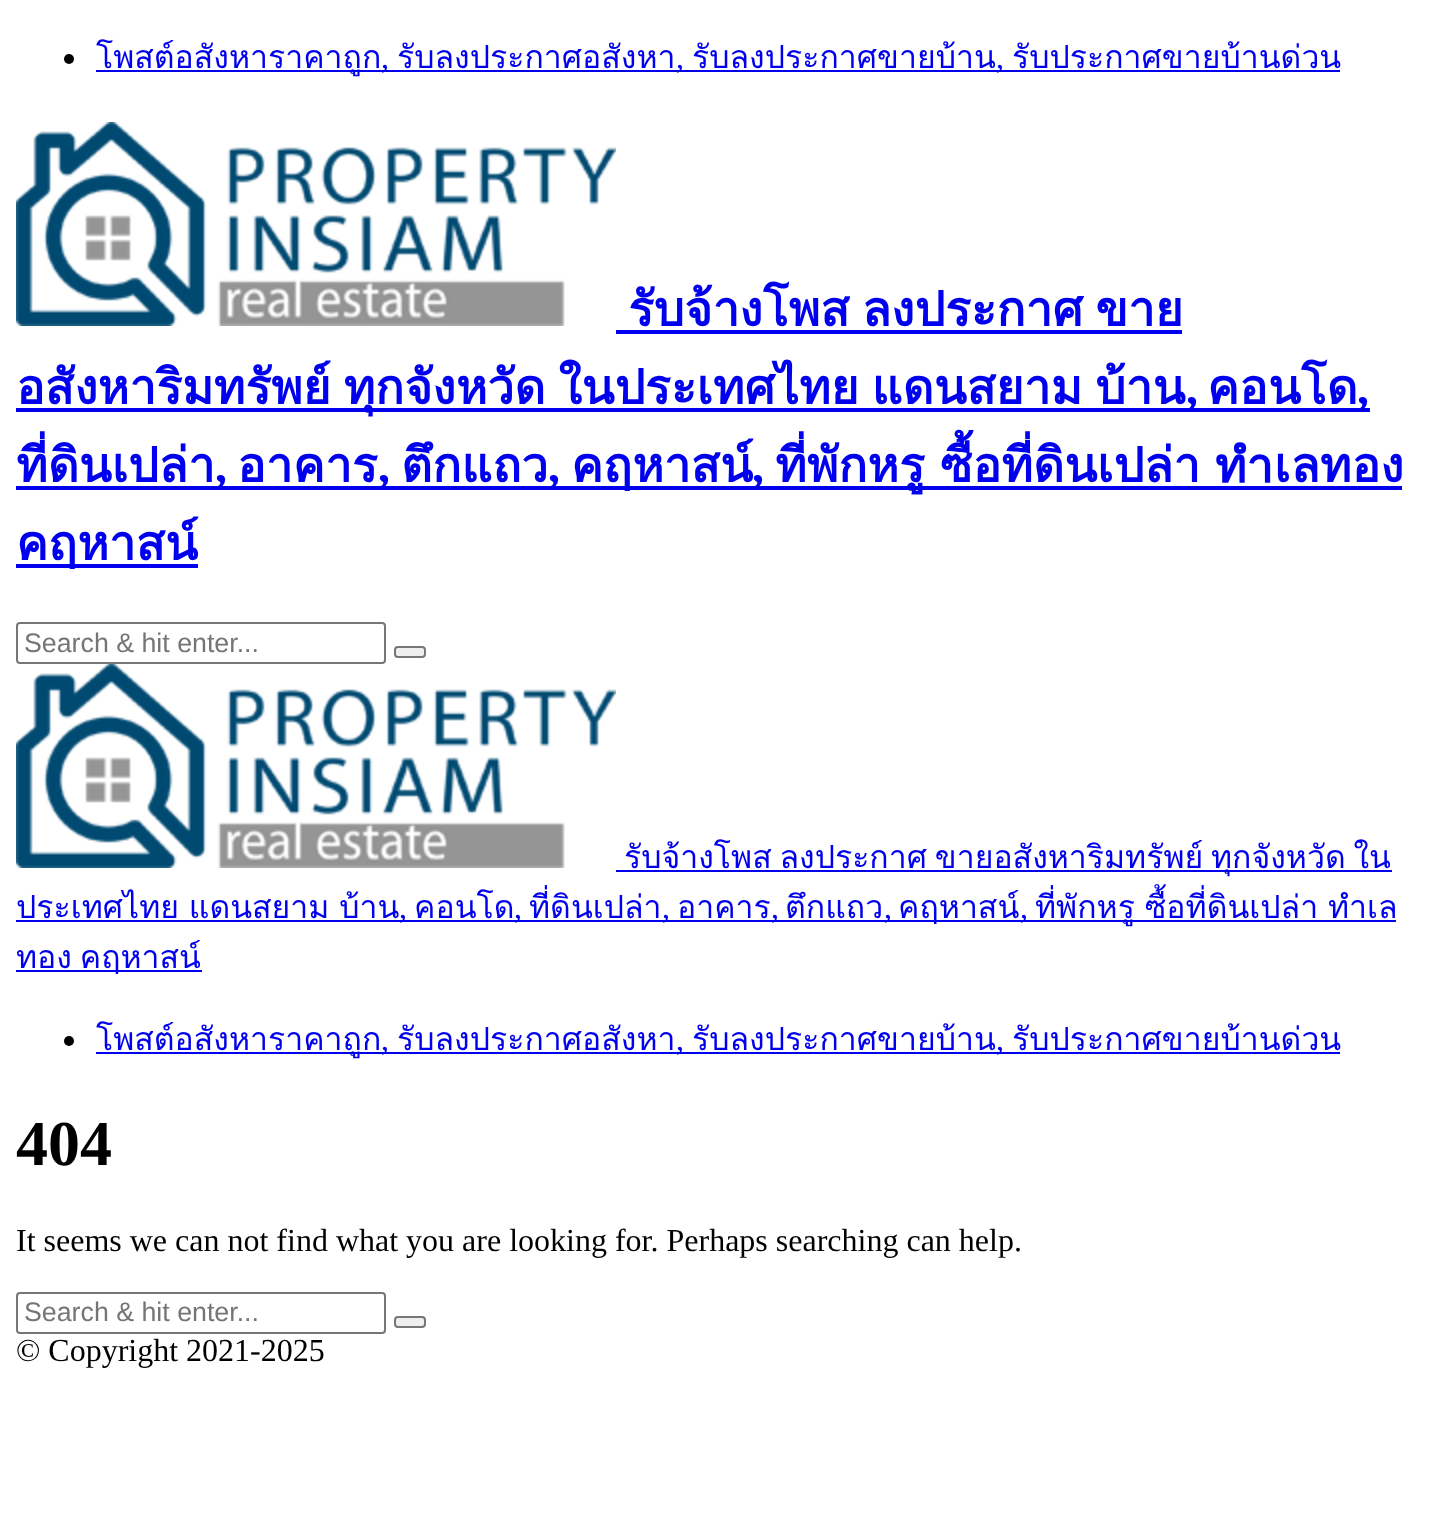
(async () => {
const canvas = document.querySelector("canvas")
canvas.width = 1455
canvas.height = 1535
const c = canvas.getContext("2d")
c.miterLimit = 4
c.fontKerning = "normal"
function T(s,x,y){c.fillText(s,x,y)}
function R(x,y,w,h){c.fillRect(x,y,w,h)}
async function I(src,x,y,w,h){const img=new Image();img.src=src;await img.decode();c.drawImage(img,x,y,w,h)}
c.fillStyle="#fff"
R(0,0,1455,1535)
c.fillStyle="#000"
c.beginPath()
c.arc(69,59,5,0,7)
c.fill()
c.fillStyle="#00e"
R(96,70,1244,2)
c.font="32px Loma"
T("โพสต์อสังหาราคาถูก",96,68)
c.font="32px Liberation Serif"
T(",",381,68)
c.font="32px Loma"
T("รับลงประกาศอสังหา",397,68)
c.font="32px Liberation Serif"
T(",",676,68)
c.font="32px Loma"
T("รับลงประกาศขายบ้าน",692,68)
c.font="32px Liberation Serif"
T(",",996,68)
c.font="32px Loma"
T("รับประกาศขายบ้านด่วน",1012,68)
await I("1.png",16,122,600,204)
c.wordSpacing="-4px"
c.font="bold 48px Loma"
T("รับจ้างโพส ลงประกาศ ขาย",628,326)
R(616,330,566,4)
R(16,408,1354,4)
c.wordSpacing="-3.5px"
T("อสังหาริมทรัพย์ ทุกจังหวัด ในประเทศไทย แดนสยาม บ้าน",16,404)
c.wordSpacing="0px"
c.font="bold 48px Liberation Serif"
T(",",1186,404)
c.font="bold 48px Loma"
T("คอนโด",1207,404)
c.font="bold 48px Liberation Serif"
T(",",1357,404)
c.font="bold 48px Loma"
T("ที่ดินเปล่า",16,482)
R(16,486,1386,4)
c.font="bold 48px Liberation Serif"
T(",",215,482)
c.font="bold 48px Loma"
T("อาคาร",237,482)
c.font="bold 48px Liberation Serif"
T(",",378,482)
c.font="bold 48px Loma"
T("ตึกแถว",401,482)
T("คฤหาสน์",571,482)
c.font="bold 48px Liberation Serif"
T(",",752,482)
c.wordSpacing="-1px"
c.font="bold 48px Loma"
T("ที่พักหรู ซื้อที่ดินเปล่า ทำเลทอง",775,482)
c.wordSpacing="0px"
c.font="bold 48px Liberation Serif"
T(",",548,482)
R(16,564,182,4)
c.font="bold 48px Loma"
T("คฤหาสน์",16,560)
c.beginPath()
c.roundRect(17,623,368,40,3)
c.strokeStyle="#767676"
c.lineWidth=2
c.stroke()
c.font="26.75px Liberation Sans"
c.fillStyle="#757575"
T("Search & hit enter...",24,652)
c.fillStyle="#efefef"
c.beginPath()
c.roundRect(395,647,30,10,3)
c.fill()
c.stroke()
await I("1.png",16,664,600,204)
c.fillStyle="#00e"
R(616,870,776,2)
c.wordSpacing="-3px"
c.font="32px Loma"
T("รับจ้างโพส ลงประกาศ ขายอสังหาริมทรัพย์ ทุกจังหวัด ใน",624,868)
c.wordSpacing="-1px"
T("ประเทศไทย แดนสยาม บ้าน",16,918)
R(16,920,1380,2)
c.wordSpacing="0px"
c.font="32px Liberation Serif"
T(",",399,918)
c.font="32px Loma"
T("คอนโด",414,918)
c.font="32px Liberation Serif"
T(",",514,918)
c.font="32px Loma"
T("ที่ดินเปล่า",529,918)
T("อาคาร",677,918)
c.font="32px Liberation Serif"
T(",",771,918)
c.font="32px Loma"
T("ตึกแถว",785,918)
T("คฤหาสน์",898,918)
c.font="32px Liberation Serif"
T(",",1020,918)
c.wordSpacing="-1px"
c.font="32px Loma"
T("ที่พักหรู ซื้อที่ดินเปล่า ทำเล",1035,918)
c.wordSpacing="0px"
c.font="32px Liberation Serif"
T(",",662,918)
T(",",884,918)
R(16,970,186,2)
c.wordSpacing="-3px"
c.font="32px Loma"
T("ทอง คฤหาสน์",16,968)
c.fillStyle="#000"
c.beginPath()
c.arc(69,1041,5,0,7)
c.fill()
c.fillStyle="#00e"
R(96,1052,1244,2)
c.wordSpacing="0px"
T("โพสต์อสังหาราคาถูก",96,1050)
c.font="32px Liberation Serif"
T(",",381,1050)
c.font="32px Loma"
T("รับลงประกาศอสังหา",397,1050)
c.font="32px Liberation Serif"
T(",",676,1050)
c.font="32px Loma"
T("รับลงประกาศขายบ้าน",692,1050)
c.font="32px Liberation Serif"
T(",",996,1050)
c.font="32px Loma"
T("รับประกาศขายบ้านด่วน",1012,1050)
c.font="bold 64px Liberation Serif"
c.fillStyle="#000"
T("404",16,1165)
c.font="32px Liberation Serif"
T("It seems we can not find what you are looking for. Perhaps searching can help.",16,1251)
c.beginPath()
c.roundRect(17,1293,368,40,3)
c.stroke()
c.font="26.75px Liberation Sans"
c.fillStyle="#757575"
T("Search & hit enter...",24,1321)
c.fillStyle="#efefef"
c.beginPath()
c.roundRect(395,1317,30,10,3)
c.fill()
c.stroke()
c.font="32px Liberation Serif"
c.fillStyle="#000"
T("© Copyright 2021-2025",16,1361)
})()
